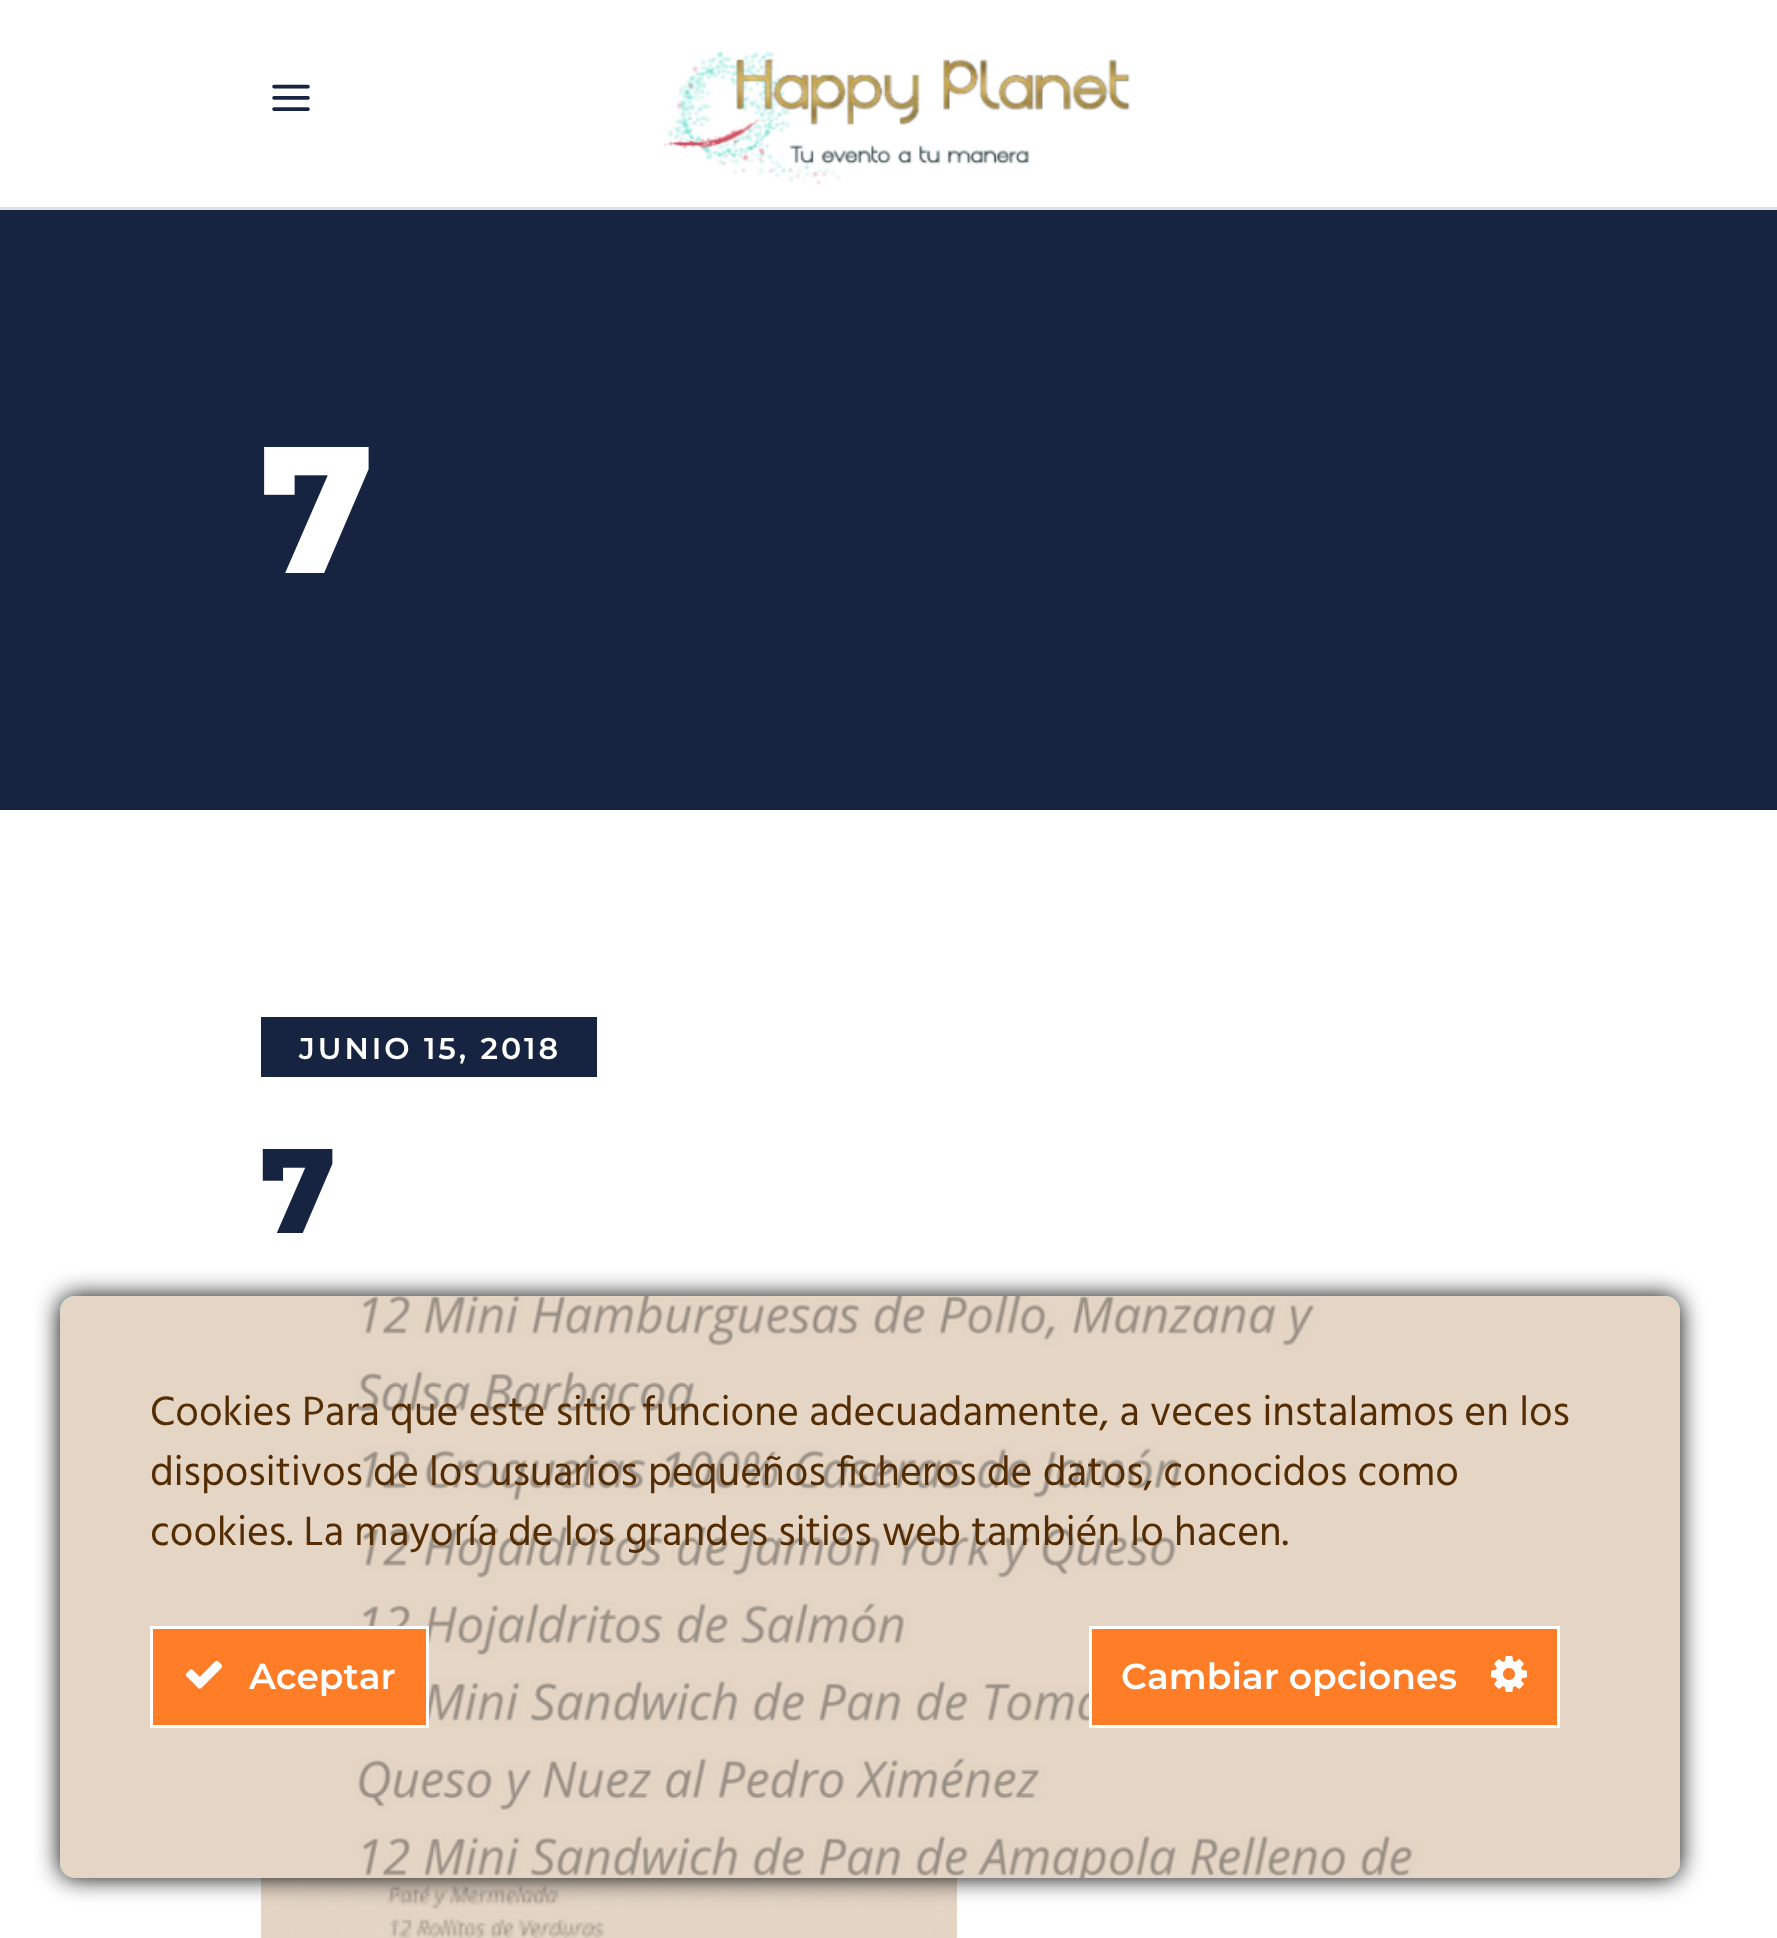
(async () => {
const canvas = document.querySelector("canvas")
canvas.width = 1777
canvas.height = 1938
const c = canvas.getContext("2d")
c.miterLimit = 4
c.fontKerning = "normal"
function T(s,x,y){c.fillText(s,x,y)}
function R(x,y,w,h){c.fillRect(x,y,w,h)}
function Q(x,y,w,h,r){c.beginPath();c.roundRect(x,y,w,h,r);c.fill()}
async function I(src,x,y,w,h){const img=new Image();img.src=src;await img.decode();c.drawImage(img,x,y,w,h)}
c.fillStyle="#fff"
R(0,0,1777,1938)
c.fillStyle="#e1e1e1"
R(0,207,1777,3)
await I("1.png",272,84,38,27)
await I("2.png",664,51,466,134)
c.fillStyle="#162441"
R(0,210,1777,600)
c.font="800 180px Montserrat"
c.fillStyle="#fff"
T("7",260,573)
c.fillStyle="#162441"
R(261,1017,336,60)
c.letterSpacing="3px"
c.font="600 30px Montserrat"
c.fillStyle="#fff"
T("JUNIO 15, 2018",299,1059)
c.letterSpacing="0px"
c.font="800 120px Montserrat"
c.fillStyle="#162441"
T("7",260,1233)
await I("3.png",261,1878,696,60)
c.fillStyle="#000"
c.filter="blur(12px)"
c.beginPath()
c.roundRect(60,1296,1620,582,15)
c.fill()
c.filter="none"
c.fillStyle="#84fff2"
Q(60,1296,1620,582,15)
await I("4.png",60,1296,1620,582)
c.font="42px Hind"
c.fillStyle="#542d04"
T("Cookies Para que este sitio funcione adecuadamente, a veces instalamos en los",150,1425)
T("dispositivos de los usuarios pequeños ficheros de datos, conocidos como",150,1485)
T("cookies. La mayoría de los grandes sitios web también lo hacen.",150,1545)
c.fillStyle="#ff7d27"
c.beginPath()
c.rect(151.5,1627.5,276,99)
c.fill()
c.strokeStyle="#fff"
c.lineWidth=3
c.stroke()
await I("5.png",185,1660,38,29)
c.font="600 36px 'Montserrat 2'"
c.fillStyle="#fff"
T("Aceptar",249,1689)
c.fillStyle="#ff7d27"
c.beginPath()
c.rect(1090.5,1627.5,468,99)
c.fill()
c.stroke()
c.fillStyle="#fff"
T("Cambiar opciones",1121,1689)
await I("6.png",1491,1656,36,36)
})()
